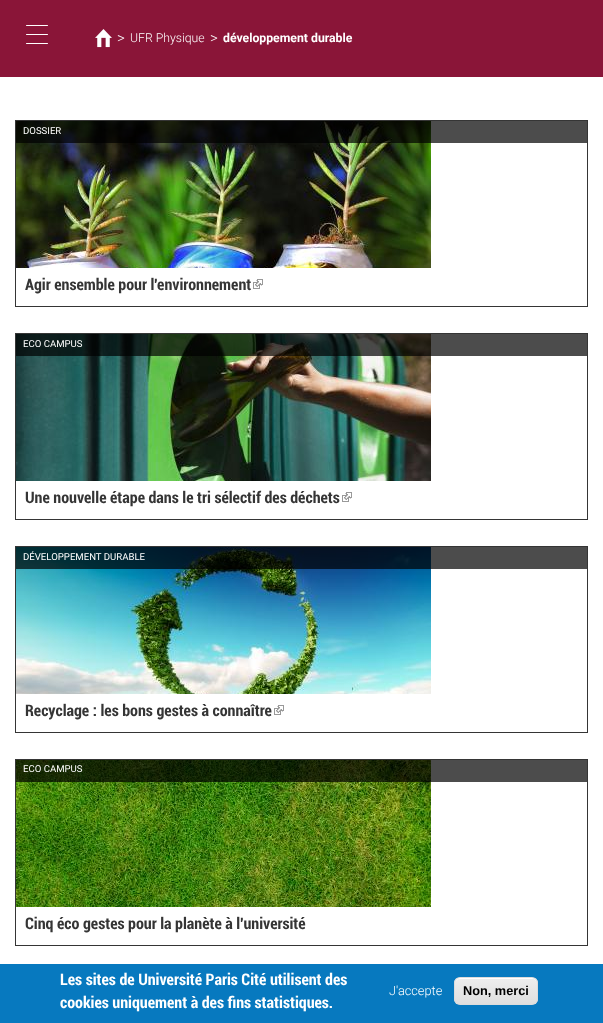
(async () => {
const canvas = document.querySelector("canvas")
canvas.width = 603
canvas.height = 1023
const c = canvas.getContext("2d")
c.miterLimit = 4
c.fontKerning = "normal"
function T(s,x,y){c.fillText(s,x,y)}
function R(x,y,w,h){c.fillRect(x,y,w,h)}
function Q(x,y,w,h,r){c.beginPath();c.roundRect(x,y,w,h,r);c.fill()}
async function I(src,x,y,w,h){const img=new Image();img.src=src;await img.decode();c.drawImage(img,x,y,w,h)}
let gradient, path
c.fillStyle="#fff"
R(0,0,603,1023)
c.fillStyle="#8a1538"
R(0,0,603,77)
c.fillStyle="#fff"
Q(26,25,22,1,.5)
Q(26,34,22,1,.5)
Q(26,43,22,1,.5)
await I("1.png",95,29,17,19)
c.font="300 15px Roboto"
T(">",117,43)
c.font="300 12.25px Roboto"
T("UFR Physique",130,42)
c.font="300 15px Roboto"
T(">",210,43)
c.font="bold 12.25px 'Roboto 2'"
T("développement durable",223,42)
c.strokeStyle="#353535"
c.strokeRect(15.5,120.5,572,186)
await I("2.png",16,121,415,147)
c.fillStyle="#000000b3"
R(16,121,571,22)
c.font="9.6px Roboto"
c.fillStyle="#fff"
T("DOSSIER",23,134)
c.font="bold 16px Roboto"
c.fillStyle="#353535"
T("Agir ensemble pour l'environnement",25,290)
await I("3.png",253,279,10,10)
c.strokeRect(15.5,333.5,572,186)
await I("4.png",16,334,415,147)
c.fillStyle="#000000b3"
R(16,334,571,22)
c.font="9.6px Roboto"
c.fillStyle="#fff"
T("ECO CAMPUS",23,347)
c.font="bold 16px Roboto"
c.fillStyle="#353535"
T("Une nouvelle étape dans le tri sélectif des déchets",25,503)
await I("3.png",342,492,10,10)
c.strokeRect(15.5,546.5,572,186)
await I("5.png",16,547,415,147)
c.fillStyle="#000000b3"
R(16,547,571,22)
c.font="9.6px Roboto"
c.fillStyle="#fff"
T("DÉVELOPPEMENT DURABLE",23,560)
c.font="bold 16px Roboto"
c.fillStyle="#353535"
T("Recyclage : les bons gestes à connaître",25,716)
await I("3.png",274,705,10,10)
c.strokeRect(15.5,759.5,572,186)
await I("6.png",16,760,415,147)
c.fillStyle="#000000b3"
R(16,760,571,22)
c.font="9.6px Roboto"
c.fillStyle="#fff"
T("ECO CAMPUS",23,772)
c.font="bold 16px Roboto"
c.fillStyle="#353535"
T("Cinq éco gestes pour la planète à l'université",25,929)
c.fillStyle="#0779bf"
R(0,964,603,59)
c.fillStyle="#fff"
T("Les sites de Université Paris Cité utilisent des",60,985)
T("cookies uniquement à des fins statistiques.",60,1008)
c.font="300 12.75px Roboto"
T("J'accepte",389,995)
c.save()
c.beginPath()
c.roundRect(454,977,84,28,6)
c.clip()
gradient = c.createLinearGradient(496,978,496,1004)
gradient.addColorStop(.05,"#ededed")
gradient.addColorStop(1,"#dfdfdf")
c.fillStyle = gradient
R(454,978,84,26)
c.restore()
path = new Path2D("M460 979h72c3 0 5 2 5 5c0-9-11-6-17-6h-48c-6 0-17-3-17 6c0-3 2-5 5-5z")
c.fill(path)
c.beginPath()
c.roundRect(454.5,977.5,83,27,5.5)
c.strokeStyle="#dcdcdc"
c.stroke()
c.font="bold 12.75px Liberation Sans"
c.fillStyle="#000"
T("Non, merci",463,995)
})()
